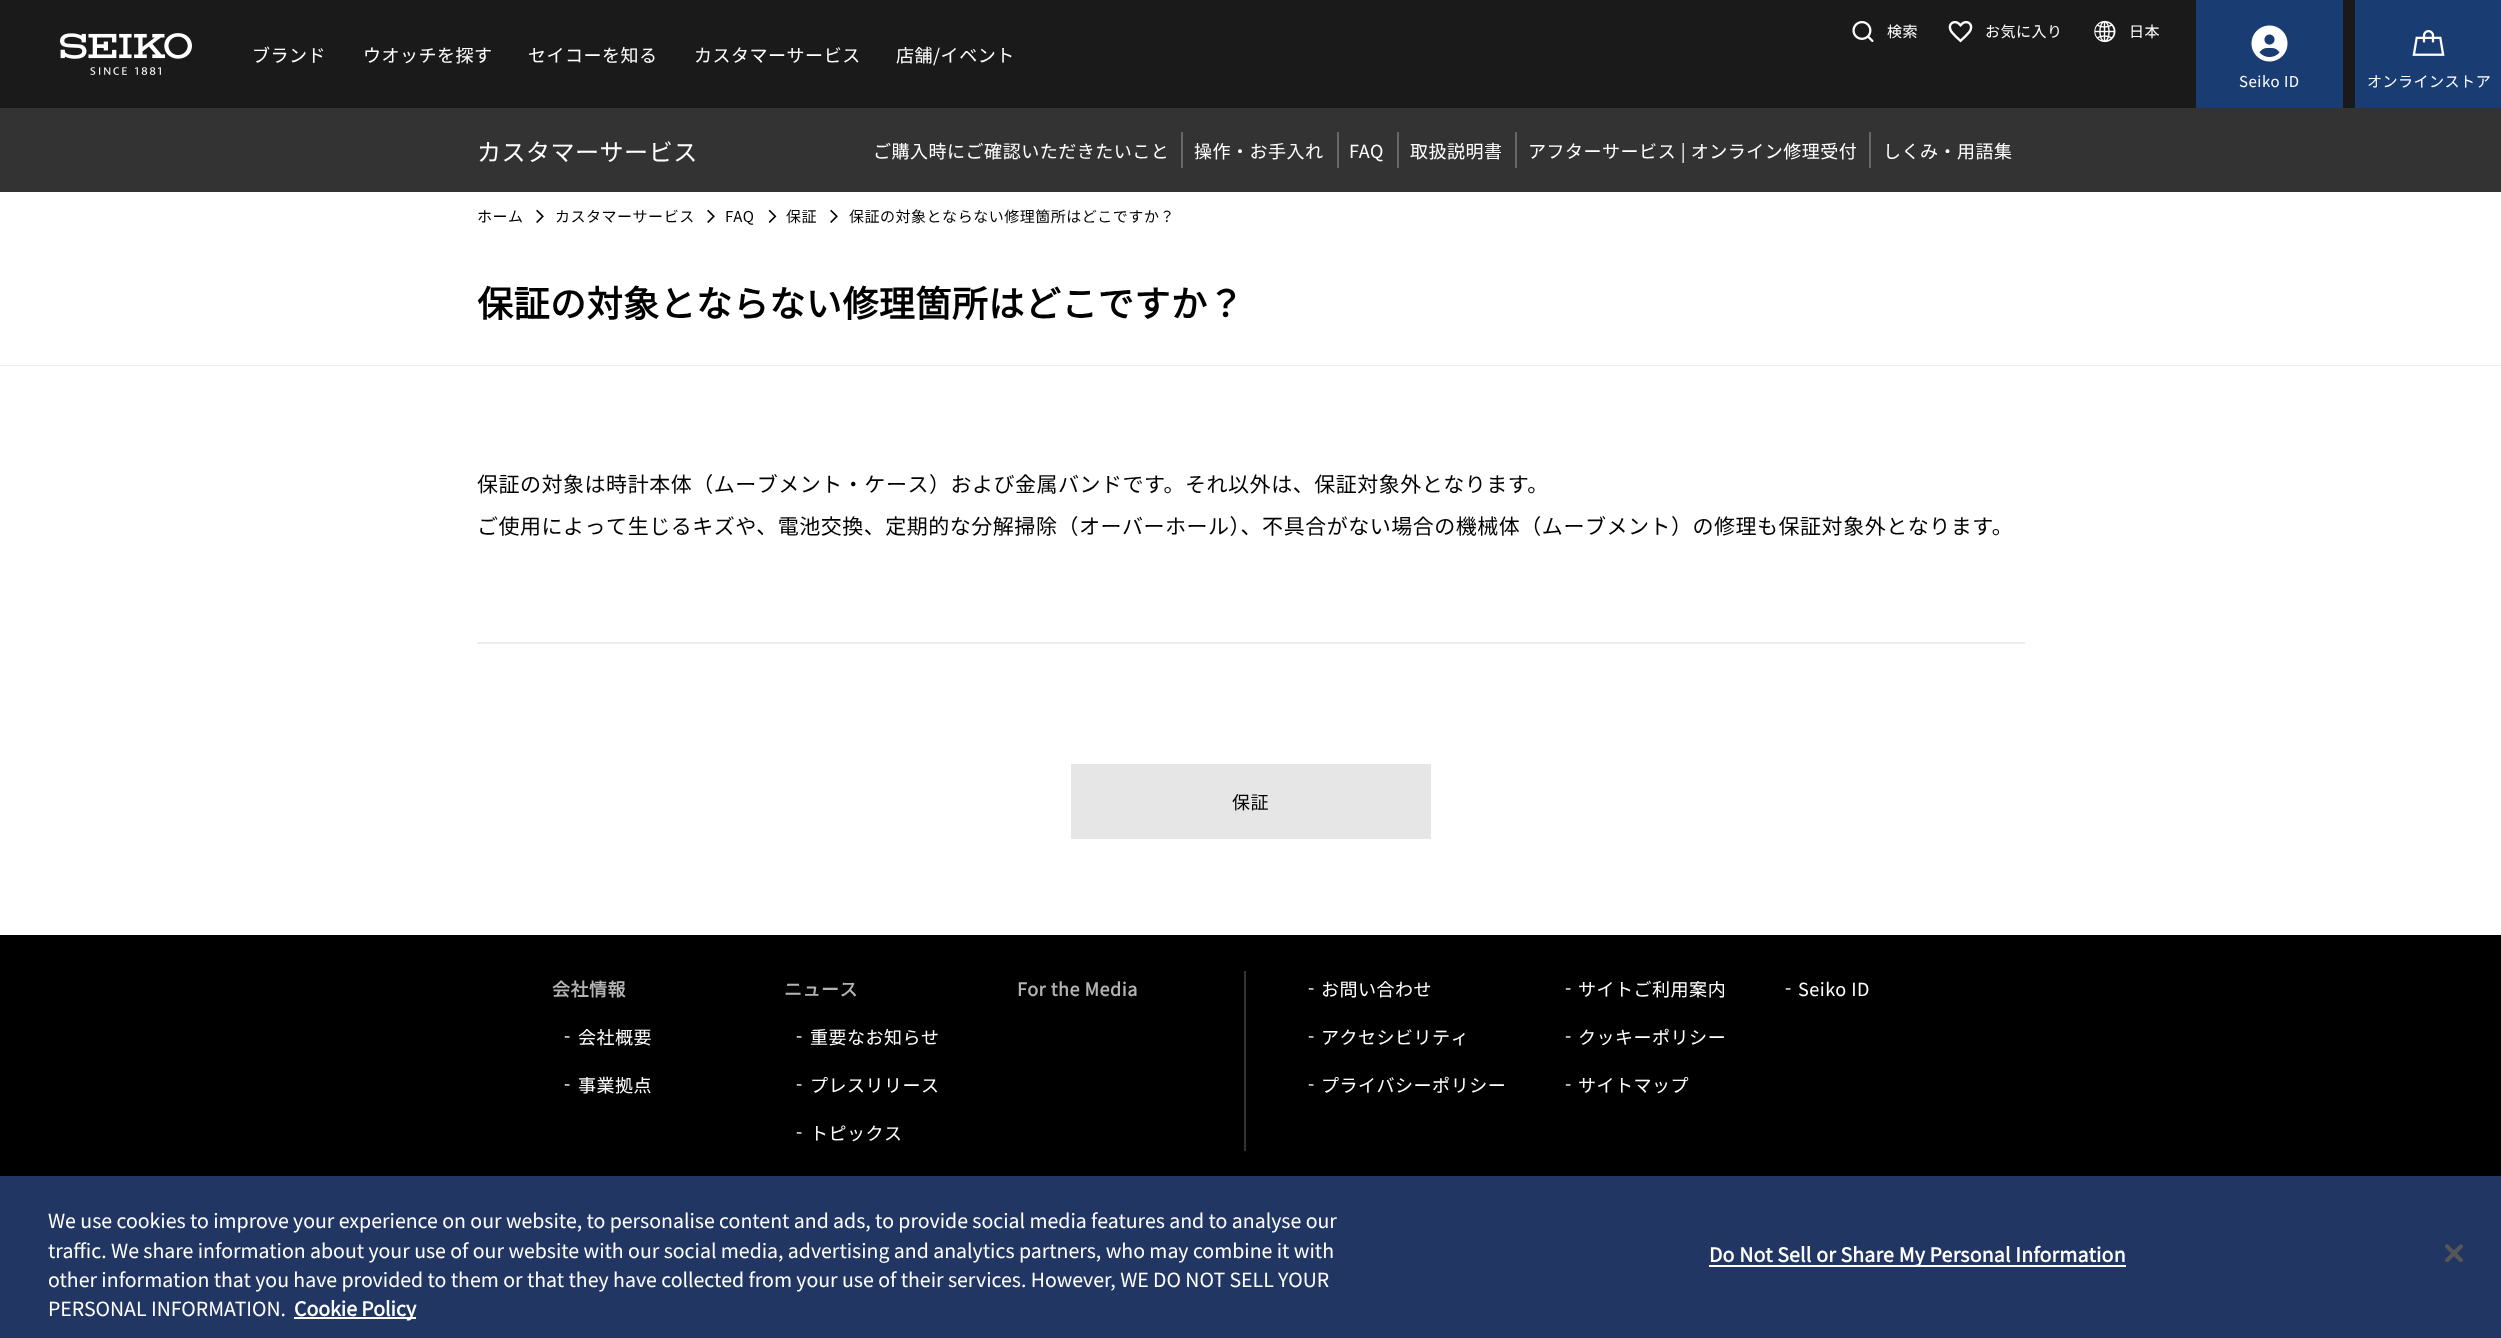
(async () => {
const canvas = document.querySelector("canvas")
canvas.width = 2501
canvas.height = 1338
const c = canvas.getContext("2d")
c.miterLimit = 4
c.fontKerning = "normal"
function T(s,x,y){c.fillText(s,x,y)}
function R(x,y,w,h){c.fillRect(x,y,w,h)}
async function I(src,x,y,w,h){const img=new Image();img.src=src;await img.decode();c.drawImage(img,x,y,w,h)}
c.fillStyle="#fff"
R(0,0,2501,1338)
c.fillStyle="#1a1a1a"
R(0,0,2355,108)
await I("1.png",60,33,132,42)
c.letterSpacing="0.52px"
c.font="18px Noto Sans CJK JP"
c.fillStyle="#fff"
T("ブランド",252,62)
T("ウオッチを探す",363,62)
T("セイコーを知る",528,62)
T("カスタマーサービス",694,62)
T("店舗/イベント",896,62)
await I("2.png",1852,21,22,21)
c.font="15px Noto Sans CJK JP"
T("検索",1887,37)
await I("3.png",1948,21,25,22)
T("お気に入り",1985,37)
await I("4.png",2094,20,22,23)
T("日本",2129,37)
c.fillStyle="#193c72"
R(2196,0,147,108)
await I("5.png",2251,25,37,37)
c.fillStyle="#fff"
T("Seiko ID",2239,87)
c.fillStyle="#193c72"
R(2355,0,146,108)
await I("6.png",2412,30,33,26)
c.fillStyle="#fff"
T("オンラインストア",2367,87)
c.fillStyle="#333"
R(0,108,2501,84)
c.font="24px Noto Sans CJK JP"
c.fillStyle="#fff"
T("カスタマーサービス",477,161)
c.font="18px Noto Sans CJK JP"
T("ご購入時にご確認いただきたいこと",873,158)
c.fillStyle="#666"
R(1181,132,2,36)
c.fillStyle="#fff"
T("操作・お手入れ",1194,158)
c.fillStyle="#666"
R(1337,132,2,36)
c.fillStyle="#fff"
T("FAQ",1349,158)
c.fillStyle="#666"
R(1397,132,2,36)
c.fillStyle="#fff"
T("取扱説明書",1410,158)
c.fillStyle="#666"
R(1515,132,2,36)
c.fillStyle="#fff"
T("アフターサービス | オンライン修理受付",1528,158)
c.fillStyle="#666"
R(1869,132,2,36)
c.fillStyle="#fff"
T("しくみ・用語集",1883,158)
c.font="15px Noto Sans CJK JP"
c.fillStyle="#000"
T("ホーム",477,222)
await I("7.png",536,209,8,14)
T("カスタマーサービス",555,222)
await I("7.png",707,209,8,14)
T("FAQ",725,222)
await I("8.png",768,209,9,14)
T("保証",786,222)
await I("7.png",830,209,8,14)
T("保証の対象とならない修理箇所はどこですか？",849,222)
c.fillStyle="#f0f0f0"
R(0,365,2501,1)
c.font="bold 36px Noto Sans CJK JP"
c.fillStyle="#000"
T("保証の対象とならない修理箇所はどこですか？",477,317)
c.font="21px Noto Sans CJK JP"
T("保証の対象は時計本体（ムーブメント・ケース）および金属バンドです。それ以外は、保証対象外となります。",477,492)
T("ご使用によって生じるキズや、電池交換、定期的な分解掃除（オーバーホール）、不具合がない場合の機械体（ムーブメント）の修理も保証対象外となります。",477,534)
c.fillStyle="#ececec"
R(477,642,1548,2)
c.fillStyle="#e6e6e6"
R(1071,764,360,75)
c.font="18px Noto Sans CJK JP"
c.fillStyle="#000"
T("保証",1232,809)
R(0,935,2501,241)
c.font="bold 18px Noto Sans CJK JP"
c.fillStyle="#b3b3b3"
T("会社情報",552,996)
c.font="18px Noto Sans CJK JP"
c.fillStyle="#fff"
T("-",564,1042)
T("会社概要",578,1044)
T("-",564,1090)
T("事業拠点",578,1092)
c.font="bold 18px Noto Sans CJK JP"
c.fillStyle="#b3b3b3"
T("ニュース",784,996)
c.font="18px Noto Sans CJK JP"
c.fillStyle="#fff"
T("-",796,1042)
T("重要なお知らせ",810,1044)
T("-",796,1090)
T("プレスリリース",810,1092)
T("-",796,1138)
T("トピックス",810,1140)
c.font="bold 18px Noto Sans CJK JP"
c.fillStyle="#b3b3b3"
T("For the Media",1017,996)
c.fillStyle="#333"
R(1244,971,2,180)
c.font="18px Noto Sans CJK JP"
c.fillStyle="#fff"
T("-",1308,994)
T("お問い合わせ",1321,996)
T("-",1565,994)
T("サイトご利用案内",1578,996)
T("-",1785,994)
T("Seiko ID",1798,996)
T("-",1308,1042)
T("アクセシビリティ",1321,1044)
T("-",1565,1042)
T("クッキーポリシー",1578,1044)
T("-",1308,1090)
T("プライバシーポリシー",1321,1092)
T("-",1565,1090)
T("サイトマップ",1578,1092)
c.fillStyle="#213662"
R(0,1176,2501,162)
c.letterSpacing="0px"
c.font="19.5px Noto Sans CJK JP"
c.fillStyle="#fff"
T("We use cookies to improve your experience on our website, to personalise content and ads, to provide social media features and to analyse our",48,1228)
T("traffic. We share information about your use of our website with our social media, advertising and analytics partners, who may combine it with",48,1258)
T("other information that you have provided to them or that they have collected from your use of their services. However, WE DO NOT SELL YOUR",48,1287)
T("PERSONAL INFORMATION.",48,1316)
R(294,1317,122,2)
c.font="bold 19.5px Noto Sans CJK JP"
T("Cookie Policy",294,1316)
R(1709,1265,417,2)
c.letterSpacing="0.2px"
T("Do Not Sell or Share My Personal Information",1709,1262)
await I("9.png",2445,1244,18,18)
})()
